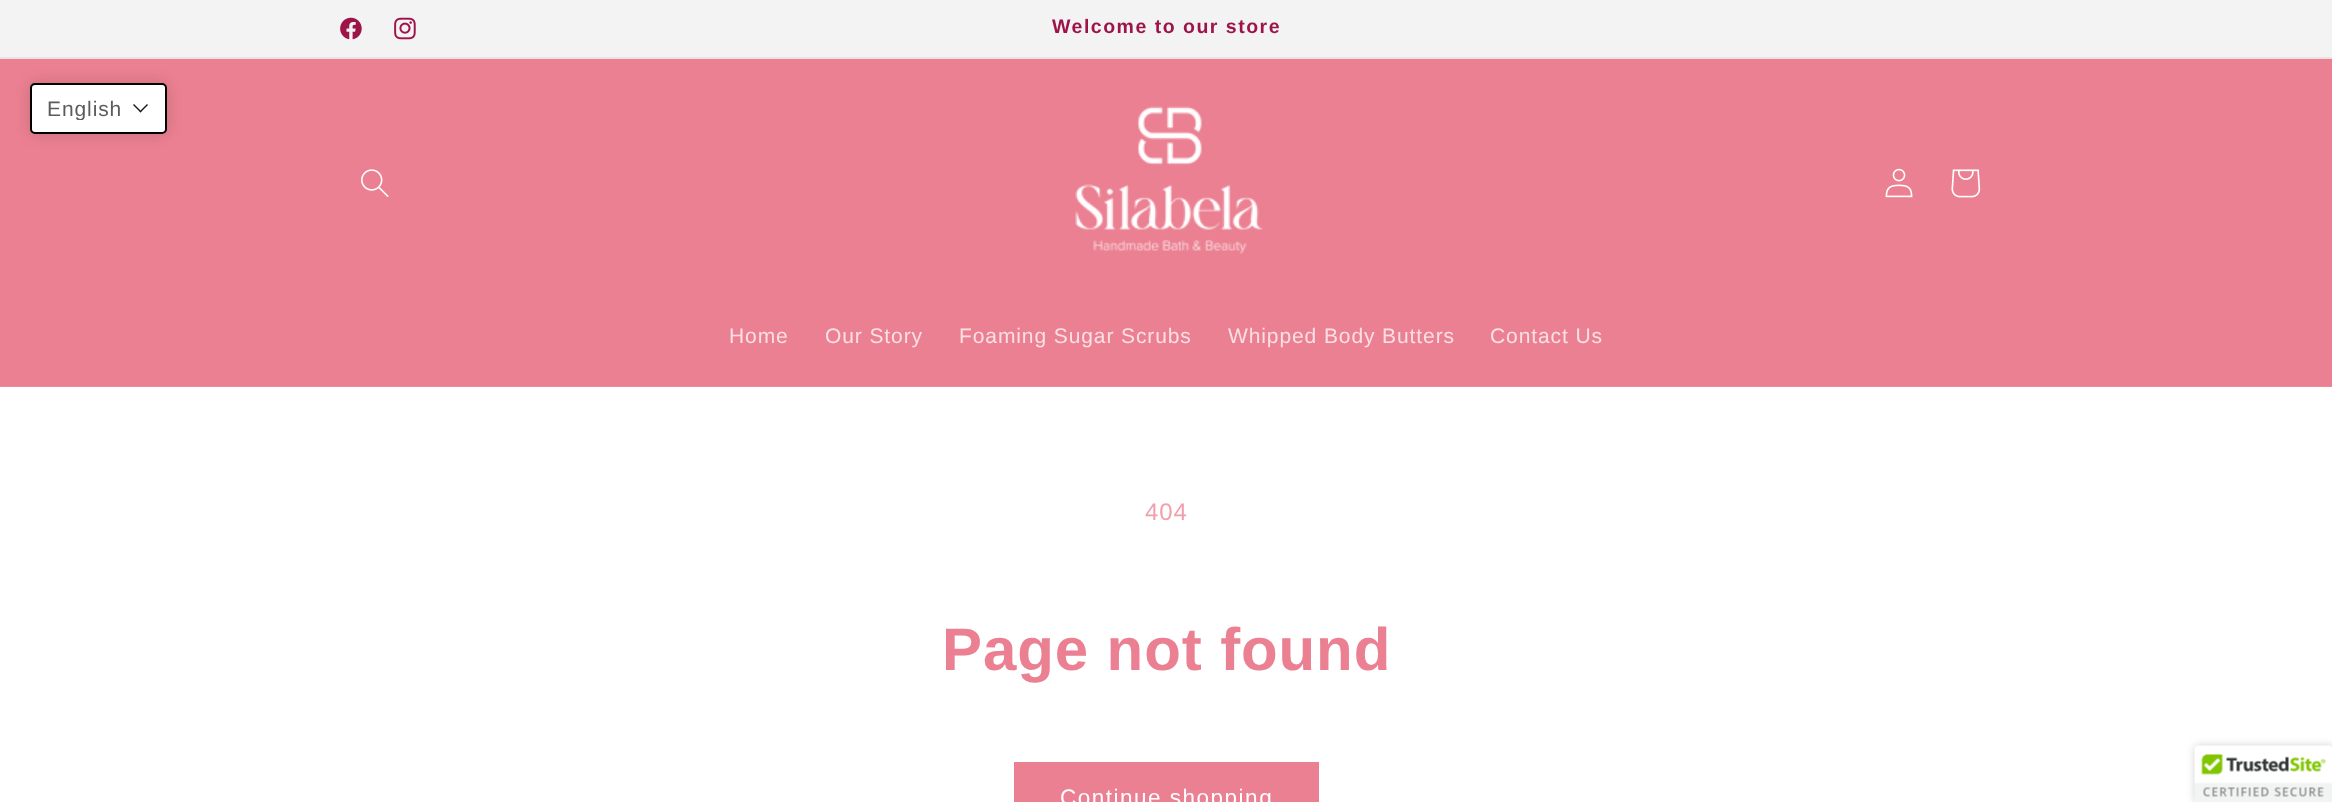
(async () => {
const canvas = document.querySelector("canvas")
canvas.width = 2332
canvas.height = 802
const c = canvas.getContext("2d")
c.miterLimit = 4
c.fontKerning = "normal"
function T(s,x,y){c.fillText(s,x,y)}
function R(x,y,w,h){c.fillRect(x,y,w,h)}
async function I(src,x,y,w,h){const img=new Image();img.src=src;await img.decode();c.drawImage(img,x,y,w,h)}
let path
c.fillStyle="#fff"
R(0,0,2332,802)
c.fillStyle="#f3f3f3"
R(0,0,2332,57)
c.fillStyle="#ece1e5"
R(0,57,2332,2)
await I("1.png",340,17,22,23)
await I("2.png",394,17,22,23)
c.letterSpacing="1.5px"
c.font="bold 19.5px Liberation Sans"
c.fillStyle="#9d1449"
T("Welcome to our store",1052,33)
c.fillStyle="#eb8092"
R(0,59,2332,327)
c.fillStyle="#00000026"
c.filter="blur(7.5px)"
c.beginPath()
c.roundRect(30,83,137,51,5)
c.fill()
c.filter="none"
c.fillStyle="#fff"
c.beginPath()
c.roundRect(31,84,135,49,4)
c.fill()
c.strokeStyle="#000"
c.lineWidth=2
c.stroke()
c.save()
c.beginPath()
c.rect(47,96,75,24)
c.clip()
c.letterSpacing="0.9px"
c.font="21px Liberation Sans"
c.fillStyle="#5c5c5c"
T("English",47,116)
c.restore()
c.fillStyle="#1a1a1a"
path = new Path2D("M147 104l1 1l-7.5 7.5l-1-1z")
c.fill(path)
path = new Path2D("M134 104l7.5 7.5l-1 1l-7.5-7.5z")
c.fill(path)
c.fillStyle="#ed8a9b"
R(0,386,2332,1)
await I("3.png",361,169,28,28)
await I("4.png",1075,106,188,148)
await I("5.png",1885,168,28,30)
await I("6.png",1951,169,30,29)
c.letterSpacing="0.9px"
c.font="21px Liberation Sans"
c.fillStyle="#fadfe4"
T("Home",729,343)
T("Our Story",825,343)
T("Foaming Sugar Scrubs",959,343)
T("Whipped Body Butters",1228,343)
T("Contact Us",1490,343)
c.font="24px Liberation Sans"
c.fillStyle="#f0a0ad"
T("404",1145,520)
c.font="bold 60px Liberation Sans"
c.fillStyle="#eb8092"
T("Page not found",942,670)
R(1014,762,305,40)
c.letterSpacing="1.5px"
c.font="22.5px Liberation Sans"
c.fillStyle="#fff"
T("Continue shopping",1060,805)
c.fillStyle="#00000033"
c.filter="blur(4px)"
c.beginPath()
c.roundRect(2195,746,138,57,3)
c.fill()
c.filter="none"
await I("7.png",2194,745,138,57)
})()
